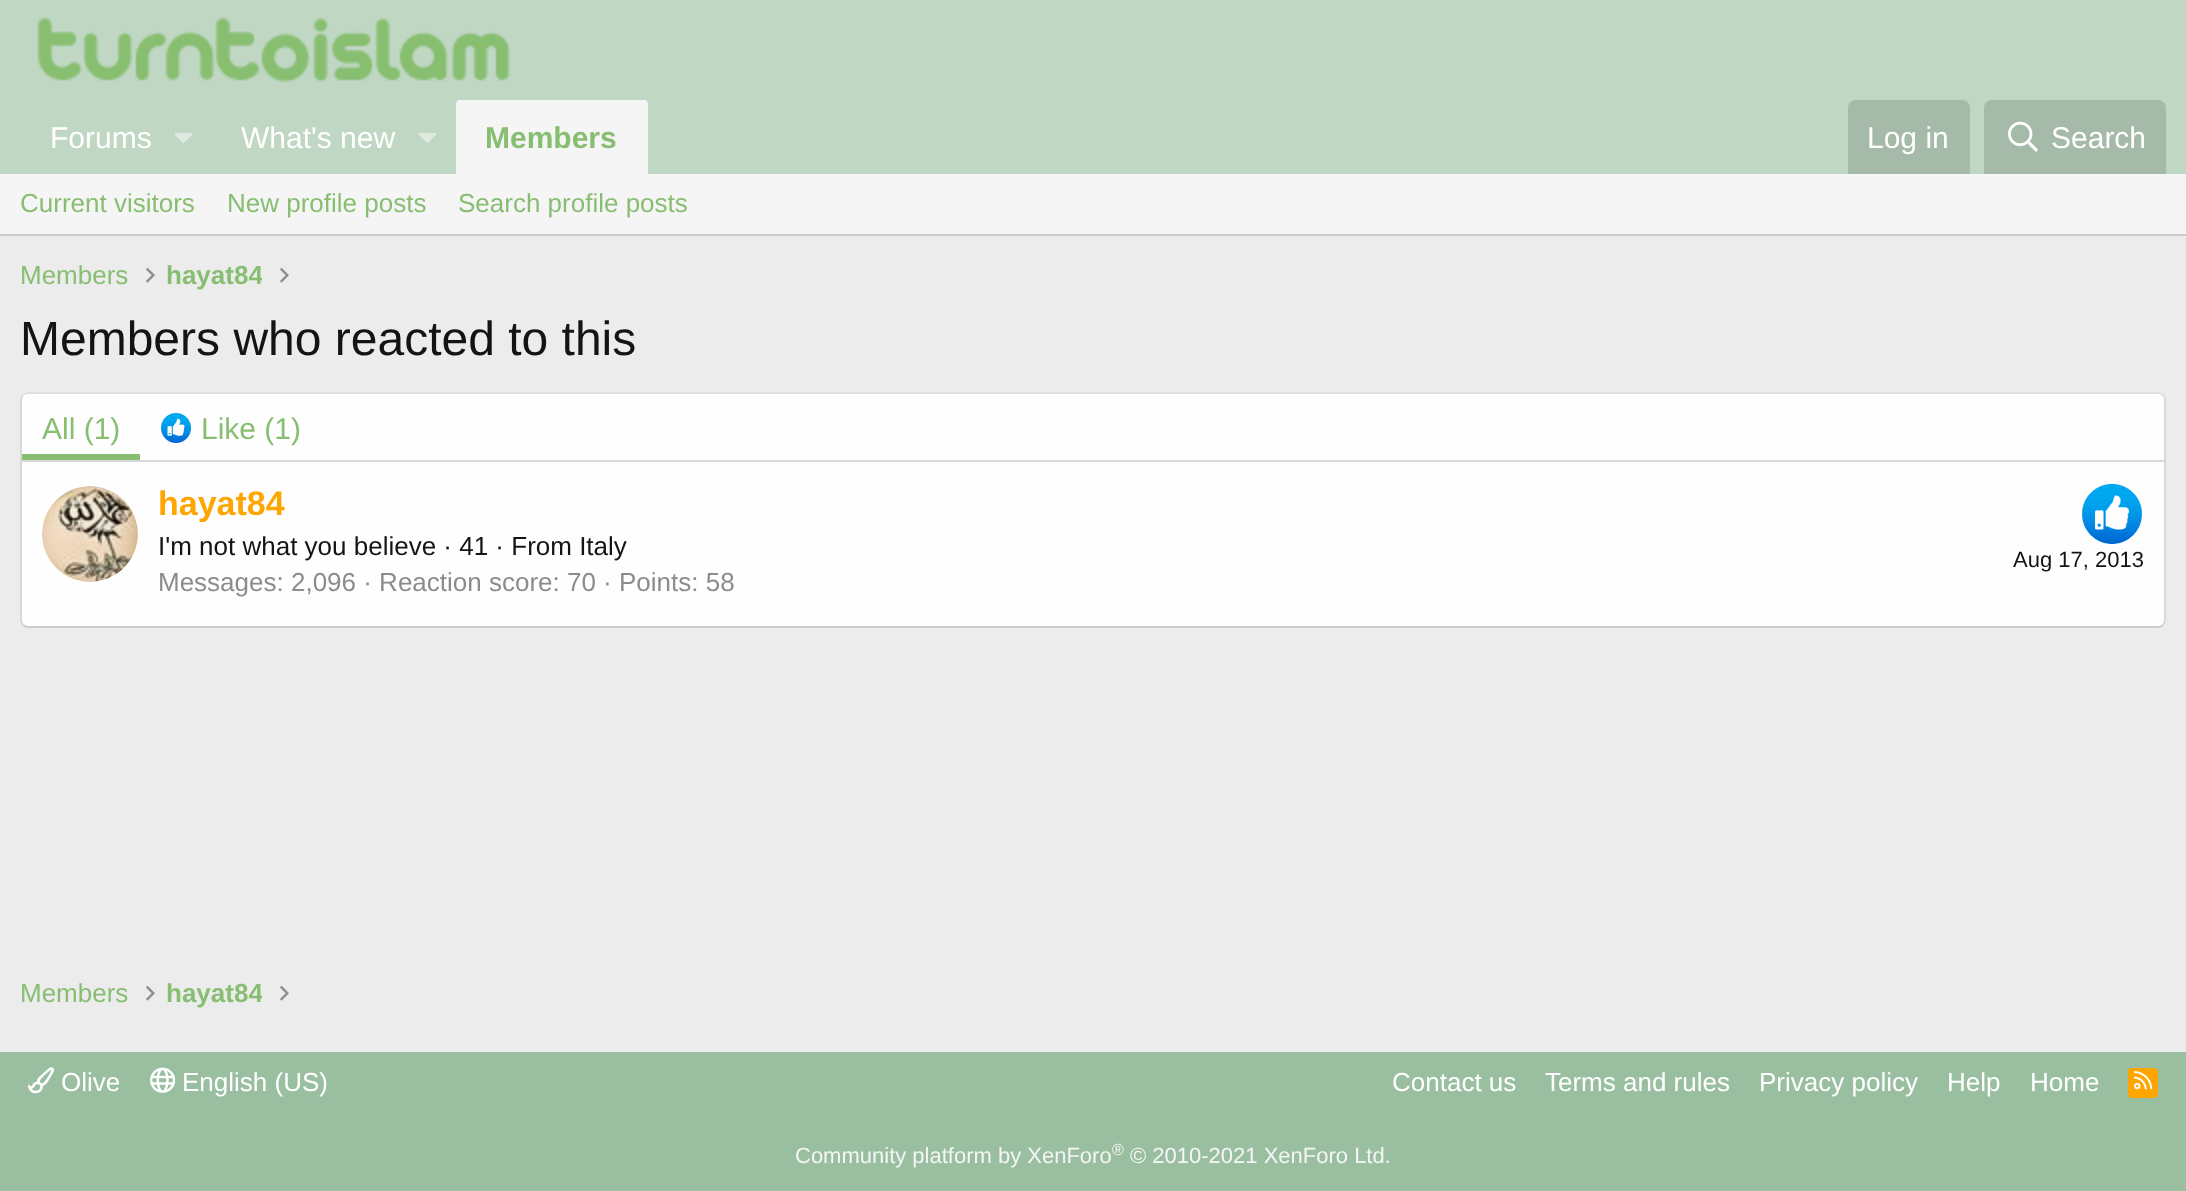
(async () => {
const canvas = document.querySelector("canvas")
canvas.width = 2186
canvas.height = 1191
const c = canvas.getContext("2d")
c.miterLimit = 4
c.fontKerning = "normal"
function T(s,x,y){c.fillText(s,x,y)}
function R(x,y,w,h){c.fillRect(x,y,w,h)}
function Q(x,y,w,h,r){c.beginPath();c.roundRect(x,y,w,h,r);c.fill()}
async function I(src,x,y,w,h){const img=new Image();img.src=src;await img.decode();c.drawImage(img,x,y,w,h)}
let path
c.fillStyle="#ececec"
R(0,0,2186,1191)
c.fillStyle="#bfd7c3"
R(0,0,2186,174)
await I("1.png",37,17,474,66)
c.font="30px Liberation Sans"
c.fillStyle="#fff"
T("Forums",50,148)
await I("2.png",174,133,18,10)
T("What's new",241,148)
await I("2.png",418,133,18,10)
c.fillStyle="#f5f5f5"
c.beginPath()
c.roundRect(456,100,192,74,[4,4,0,0])
c.fill()
c.font="bold 30px Liberation Sans"
c.fillStyle="#88be71"
T("Members",485,148)
c.fillStyle="#a5baa9"
c.beginPath()
c.roundRect(1848,100,122,74,[8,8,0,0])
c.fill()
c.font="30px Liberation Sans"
c.fillStyle="#fff"
T("Log in",1867,148)
c.fillStyle="#a5baa9"
c.beginPath()
c.roundRect(1984,100,182,74,[8,8,0,0])
c.fill()
await I("3.png",2008,121,30,31)
c.fillStyle="#fff"
T("Search",2051,148)
c.fillStyle="#f5f5f5"
R(0,174,2186,60)
c.fillStyle="#cbcbcb"
R(0,234,2186,2)
c.font="26px Liberation Sans"
c.fillStyle="#88be71"
T("Current visitors",20,212)
T("New profile posts",227,212)
T("Search profile posts",458,212)
T("Members",20,284)
await I("4.png",146,268,9,15)
c.save()
c.beginPath()
c.rect(166,256,96,40)
c.clip()
c.font="bold 26px Liberation Sans"
T("hayat84",166,284)
c.restore()
await I("4.png",280,268,9,15)
c.font="48px Liberation Sans"
c.fillStyle="#141414"
T("Members who reacted to this",20,355)
c.fillStyle="#fefefe"
Q(20,392,2146,236,8)
path = new Path2D("M23 395c1.5-1.5 3-2 5-2h2130c2 0 3.5 .5 5 2")
c.strokeStyle="#dfdfdf"
c.lineWidth=2
c.stroke(path)
path = new Path2D("M2163 395c1.5 1.5 2 3 2 5v220c0 2-.5 3.5-2 5")
c.strokeStyle="#d8d8d8"
c.stroke(path)
path = new Path2D("M2163 625c-1.5 1.5-3 2-5 2h-2130c-2 0-3.5-.5-5-2")
c.strokeStyle="#cbcbcb"
c.stroke(path)
path = new Path2D("M23 625c-1.5-1.5-2-3-2-5v-220c0-2 .5-3.5 2-5")
c.strokeStyle="#d8d8d8"
c.stroke(path)
c.beginPath()
c.roundRect(22,394,2142,68,[6,6,0,0])
c.fill()
c.fillStyle="#d8d8d8"
R(22,460,2142,2)
c.fillStyle="#88be71"
R(22,454,118,6)
c.font="30px Liberation Sans"
T("All (1)",42,439)
await I("5.png",161,413,30,30)
T("Like (1)",201,439)
await I("6.png",42,486,96,96)
c.font="bold 34px Liberation Sans"
c.fillStyle="#ffa500"
T("hayat84",158,515)
c.font="26px Liberation Sans"
c.fillStyle="#141414"
T("I'm not what you believe · 41 · From Italy",158,555)
await I("7.png",2082,484,60,60)
c.font="22px Liberation Sans"
T("Aug 17, 2013",2013,567)
c.font="26px Liberation Sans"
c.fillStyle="#8c8c8c"
T("Messages: 2,096 · Reaction score: 70 · Points: 58",158,591)
c.fillStyle="#88be71"
T("Members",20,1002)
await I("4.png",146,986,9,15)
c.save()
c.beginPath()
c.rect(166,974,96,38)
c.clip()
c.font="bold 26px Liberation Sans"
T("hayat84",166,1002)
c.restore()
await I("4.png",280,986,9,15)
c.fillStyle="#99bfa0"
R(0,1052,2186,139)
await I("8.png",28,1067,26,27)
c.fillStyle="#fff"
T("Olive",61,1091)
await I("9.png",150,1067,26,26)
T("English (US)",182,1091)
T("Contact us",1392,1091)
T("Terms and rules",1545,1091)
T("Privacy policy",1759,1091)
T("Help",1947,1091)
T("Home",2030,1091)
c.fillStyle="#ffa500"
Q(2128,1068,30,30,4)
await I("10.png",2134,1071,19,19)
c.font="22px Liberation Sans"
c.fillStyle="#f5f5f5"
T("Community platform by XenForo",795,1163)
c.font="16px Liberation Sans"
T("®",1112,1155)
c.font="22px Liberation Sans"
T("© 2010-2021 XenForo Ltd.",1130,1163)
})()
